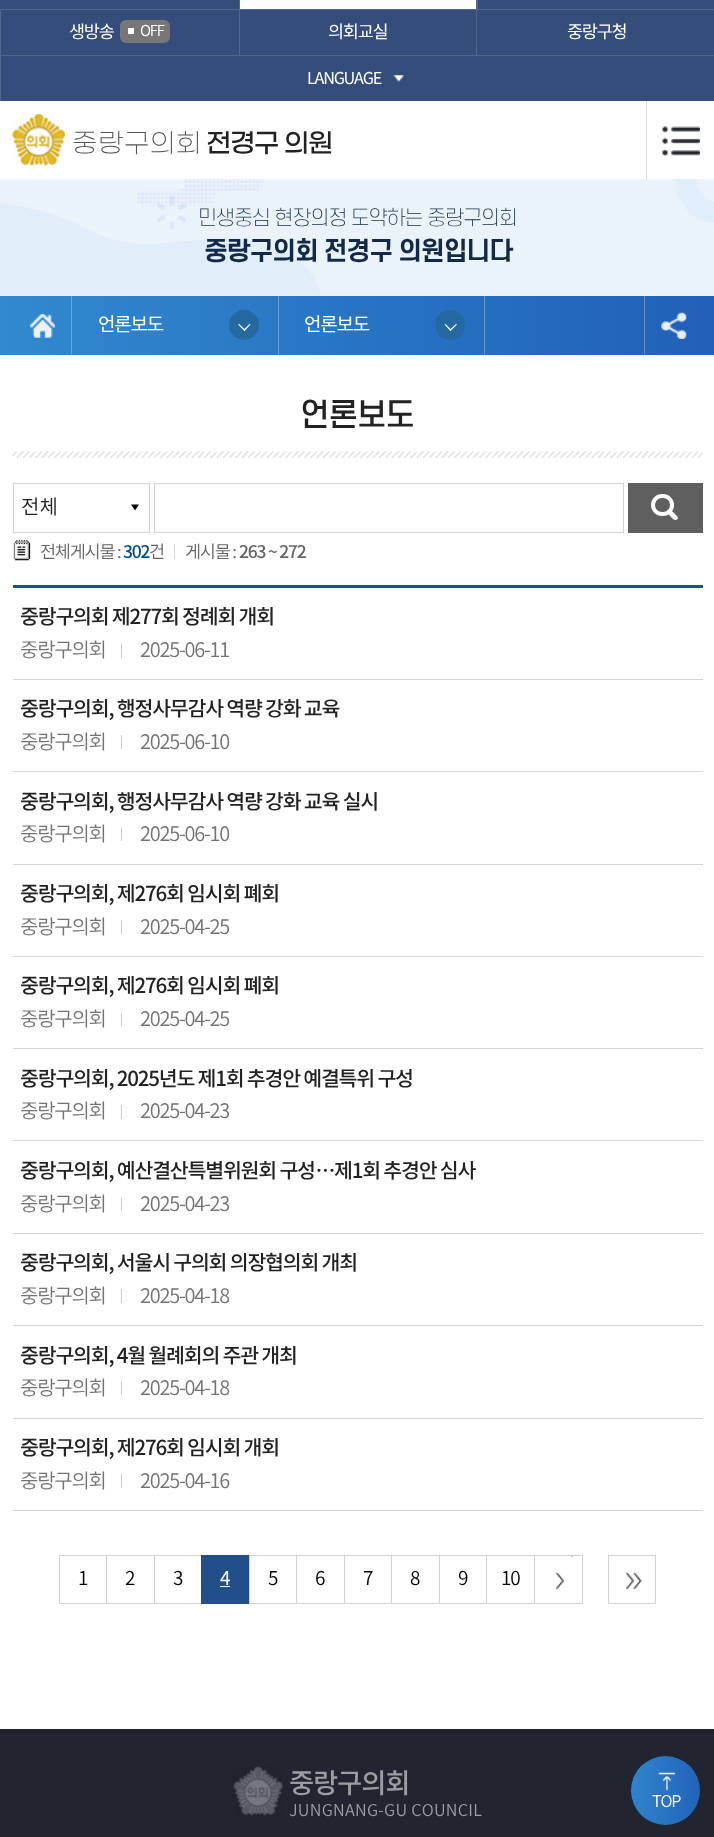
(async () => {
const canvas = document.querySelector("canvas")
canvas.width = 714
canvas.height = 1837
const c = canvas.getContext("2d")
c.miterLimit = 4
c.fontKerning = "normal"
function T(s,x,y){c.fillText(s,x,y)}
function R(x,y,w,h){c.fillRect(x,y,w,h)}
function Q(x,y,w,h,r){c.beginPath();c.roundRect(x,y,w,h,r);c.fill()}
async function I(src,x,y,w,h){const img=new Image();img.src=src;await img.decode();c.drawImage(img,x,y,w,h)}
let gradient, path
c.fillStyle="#fff"
R(0,0,714,1837)
c.fillStyle="#354d7b"
R(0,0,714,101)
c.fillStyle="#53688f"
R(0,9,239,1)
path = new Path2D("M476 10h-237l1-1h236z")
c.fill(path)
c.fillStyle="#ffffff26"
path = new Path2D("M239 10v-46h1v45z")
c.fill(path)
c.fillStyle="#fff"
R(240,0,236,9)
c.fillStyle="#53688f"
path = new Path2D("M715 10h-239l2-1h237z")
c.fill(path)
c.fillStyle="#ffffff26"
path = new Path2D("M476 10v-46h2v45z")
c.fill(path)
c.fillStyle="#53688f"
R(0,10,1,45)
c.letterSpacing="-1.25px"
c.font="17.5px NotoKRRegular"
c.fillStyle="#fff"
T("생방송",69,38)
c.fillStyle="#777"
Q(120,20,50,23,6)
c.fillStyle="#fff"
R(128,28,6,6)
c.font="300 15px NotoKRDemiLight"
T("OFF",140,36)
c.fillStyle="#53688f"
R(239,10,1,45)
c.font="17.5px NotoKRRegular"
c.fillStyle="#fff"
T("의회교실",328,38)
c.fillStyle="#53688f"
R(476,10,1,45)
c.fillStyle="#fff"
T("중랑구청",567,38)
c.fillStyle="#53688f"
R(0,55,714,1)
R(0,56,1,45)
c.font="16.25px NotoKRRegular"
c.fillStyle="#fff"
T("LANGUAGE",307,84)
await I("1.png",393,75,11,7)
await I("2.png",12,114,53,52)
c.letterSpacing="0.75px"
c.font="300 26.25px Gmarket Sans"
c.fillStyle="#555"
T("중랑구의회",72,151)
c.letterSpacing="-1.25px"
c.font="500 26.25px Gmarket Sans"
c.fillStyle="#222"
T("전경구 의원",206,151)
await I("3.png",662,126,38,30)
c.fillStyle="#ddd"
R(646,101,1,78)
await I("4.png",0,179,714,117)
await I("5.png",157,195,30,35)
c.font="200 20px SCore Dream"
c.fillStyle="#122947"
T("민생중심 현장의정 도약하는 중랑구의회",198,225)
c.font="bold 25px SCore Dream"
T("중랑구의회 전경구 의원입니다",204,260)
gradient = c.createLinearGradient(0,326,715,326)
gradient.addColorStop(0,"#3189cf")
gradient.addColorStop(.5,"#2874c3")
gradient.addColorStop(1,"#2160b8")
c.fillStyle = gradient
R(0,296,714,59)
await I("6.png",30,314,25,24)
c.fillStyle="#63a4da"
R(71,296,1,59)
c.fillStyle="#6aa1d7"
R(278,296,1,59)
c.font="19px NotoKRRegular"
c.fillStyle="#fff"
T("언론보도",98,331)
c.fillStyle="#2568a2"
c.beginPath()
c.arc(244,325,15,0,7)
c.fill()
c.fillStyle="#fff"
path = new Path2D("M250.5 324.5l-6 6.5l-1-1l6-6z")
c.fill(path)
path = new Path2D("M245.5 330l-1 1l-6.5-6.5l1-.5z")
c.fill(path)
c.fillStyle="#6799d2"
R(484,296,1,59)
c.fillStyle="#fff"
T("언론보도",304,331)
c.fillStyle="#2568a2"
c.beginPath()
c.arc(450,325,15,0,7)
c.fill()
c.fillStyle="#fff"
path = new Path2D("M457 324.5l-6.5 6.5l-1-1l6.5-6z")
c.fill(path)
path = new Path2D("M451.5 330l-1 1l-6-6.5l1-.5z")
c.fill(path)
await I("7.png",661,312,26,27)
c.fillStyle="#598bcb"
R(644,296,1,59)
await I("8.png",12,451,691,7)
c.font="500 31px SCore Dream"
c.fillStyle="#222"
T("언론보도",300,426)
c.strokeStyle="#d2d2d2"
c.strokeRect(13.5,483.5,136,49)
c.letterSpacing="0px"
c.font="300 20px NotoKRDemiLight"
T("전체",21,514)
c.fillStyle="#000"
path = new Path2D("M131 504.5h8l-4 6z")
c.fill(path)
c.strokeRect(154.5,483.5,469,49)
c.fillStyle="#5f5f5f"
R(628,483,75,50)
c.beginPath()
c.roundRect(653,496,19,18,9)
c.strokeStyle="#fff"
c.lineWidth=4
c.stroke()
c.fillStyle="#fff"
path = new Path2D("M672.5 511.5l5 5c.5 1 .5 1.5 0 2.5c-2 3-5.5-1-7-2.5l-2-2.5c-1-2.5 2.5-4.5 4-2.5z")
c.fill(path)
await I("9.png",13,540,18,21)
c.letterSpacing="-1.25px"
c.font="300 17.5px NotoKRDemiLight"
c.fillStyle="#666"
T("전체게시물 :",40,558)
c.font="500 17.5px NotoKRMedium"
c.fillStyle="#00508e"
T("302",123,558)
c.font="300 17.5px NotoKRDemiLight"
c.fillStyle="#666"
T("건",149,558)
c.fillStyle="#d9d9d9"
R(174,544,1,15)
c.fillStyle="#666"
T("게시물 :",185,558)
c.font="500 17.5px NotoKRMedium"
T("263 ~ 272",239,558)
c.fillStyle="#214f8a"
R(13,585,690,3)
c.fillStyle="#d4d4d4"
R(13,679,690,1)
c.font="500 20.6px NotoKRMedium"
c.fillStyle="#222"
T("중랑구의회 제277회 정례회 개회",20,624)
c.font="300 20px NotoKRDemiLight"
c.fillStyle="#737373"
T("중랑구의회",20,657)
c.fillStyle="#ccc"
R(121,644,1,14)
c.fillStyle="#737373"
T("2025-06-11",140,657)
c.fillStyle="#d4d4d4"
R(13,771,690,1)
c.font="500 20.6px NotoKRMedium"
c.fillStyle="#222"
T("중랑구의회, 행정사무감사 역량 강화 교육",20,716)
c.font="300 20px NotoKRDemiLight"
c.fillStyle="#737373"
T("중랑구의회",20,749)
c.fillStyle="#ccc"
R(121,735,1,14)
c.fillStyle="#737373"
T("2025-06-10",140,749)
c.fillStyle="#d4d4d4"
R(13,864,690,1)
c.font="500 20.6px NotoKRMedium"
c.fillStyle="#222"
T("중랑구의회, 행정사무감사 역량 강화 교육 실시",20,809)
c.font="300 20px NotoKRDemiLight"
c.fillStyle="#737373"
T("중랑구의회",20,841)
c.fillStyle="#ccc"
R(121,828,1,13)
c.fillStyle="#737373"
T("2025-06-10",140,841)
c.fillStyle="#d4d4d4"
R(13,956,690,1)
c.font="500 20.6px NotoKRMedium"
c.fillStyle="#222"
T("중랑구의회, 제276회 임시회 폐회",20,901)
c.font="300 20px NotoKRDemiLight"
c.fillStyle="#737373"
T("중랑구의회",20,934)
c.fillStyle="#ccc"
R(121,920,1,14)
c.fillStyle="#737373"
T("2025-04-25",140,934)
c.fillStyle="#d4d4d4"
R(13,1048,690,1)
c.font="500 20.6px NotoKRMedium"
c.fillStyle="#222"
T("중랑구의회, 제276회 임시회 폐회",20,993)
c.font="300 20px NotoKRDemiLight"
c.fillStyle="#737373"
T("중랑구의회",20,1026)
c.fillStyle="#ccc"
R(121,1013,1,13)
c.fillStyle="#737373"
T("2025-04-25",140,1026)
c.fillStyle="#d4d4d4"
R(13,1140,690,1)
c.font="500 20.6px NotoKRMedium"
c.fillStyle="#222"
T("중랑구의회, 2025년도 제1회 추경안 예결특위 구성",20,1086)
c.font="300 20px NotoKRDemiLight"
c.fillStyle="#737373"
T("중랑구의회",20,1118)
c.fillStyle="#ccc"
R(121,1105,1,14)
c.fillStyle="#737373"
T("2025-04-23",140,1118)
c.fillStyle="#d4d4d4"
R(13,1233,690,1)
c.font="500 20.6px NotoKRMedium"
c.fillStyle="#222"
T("중랑구의회, 예산결산특별위원회 구성",20,1178)
c.font="bold 20.6px Dotum"
T("…",315,1178)
c.font="500 20.6px NotoKRMedium"
T("제1회 추경안 심사",334,1178)
c.font="300 20px NotoKRDemiLight"
c.fillStyle="#737373"
T("중랑구의회",20,1211)
c.fillStyle="#ccc"
R(121,1198,1,13)
c.fillStyle="#737373"
T("2025-04-23",140,1211)
c.fillStyle="#d4d4d4"
R(13,1325,690,1)
c.font="500 20.6px NotoKRMedium"
c.fillStyle="#222"
T("중랑구의회, 서울시 구의회 의장협의회 개최",20,1270)
c.font="300 20px NotoKRDemiLight"
c.fillStyle="#737373"
T("중랑구의회",20,1303)
c.fillStyle="#ccc"
R(121,1289,1,14)
c.fillStyle="#737373"
T("2025-04-18",140,1303)
c.fillStyle="#d4d4d4"
R(13,1418,690,1)
c.font="500 20.6px NotoKRMedium"
c.fillStyle="#222"
T("중랑구의회, 4월 월례회의 주관 개최",20,1363)
c.font="300 20px NotoKRDemiLight"
c.fillStyle="#737373"
T("중랑구의회",20,1395)
c.fillStyle="#ccc"
R(121,1381,1,14)
c.fillStyle="#737373"
T("2025-04-18",140,1395)
c.fillStyle="#d4d4d4"
R(13,1510,690,1)
c.font="500 20.6px NotoKRMedium"
c.fillStyle="#222"
T("중랑구의회, 제276회 임시회 개회",20,1455)
c.font="300 20px NotoKRDemiLight"
c.fillStyle="#737373"
T("중랑구의회",20,1488)
c.fillStyle="#ccc"
R(121,1474,1,14)
c.fillStyle="#737373"
T("2025-04-16",140,1488)
c.strokeStyle="#d2d2d2"
c.lineWidth=1
c.strokeRect(59.5,1555.5,48,48)
c.font="300 19px NotoKRDemiLight"
c.fillStyle="#000"
T("1",78,1585)
c.fillStyle="#fff"
R(107,1556,1,47)
c.strokeRect(106.5,1555.5,48,48)
c.fillStyle="#000"
T("2",125,1585)
c.strokeRect(154.5,1555.5,48,48)
T("3",173,1585)
c.fillStyle="#214f8a"
R(201,1555,48,49)
c.font="19px NotoKRRegular"
c.fillStyle="#fff"
T("4",220,1585)
R(220,1586,10,1)
c.strokeRect(249.5,1555.5,48,48)
c.font="300 19px NotoKRDemiLight"
c.fillStyle="#000"
T("5",268,1585)
c.fillStyle="#fff"
R(297,1556,1,47)
c.strokeRect(296.5,1555.5,48,48)
c.fillStyle="#000"
T("6",315,1585)
c.strokeRect(344.5,1555.5,48,48)
T("7",363,1585)
c.fillStyle="#fff"
R(392,1556,1,47)
c.strokeRect(391.5,1555.5,48,48)
c.fillStyle="#000"
T("8",410,1585)
c.strokeRect(439.5,1555.5,48,48)
T("9",458,1585)
c.fillStyle="#fff"
R(487,1556,1,47)
c.strokeRect(486.5,1555.5,48,48)
c.fillStyle="#000"
T("10",501,1585)
await I("10.png",556,1556,17,34)
c.strokeRect(534.5,1555.5,48,48)
await I("11.png",626,1572,16,17)
c.strokeRect(608.5,1555.5,47,48)
c.fillStyle="#21252f"
R(0,1729,714,108)
await I("12.png",233,1766,50,50)
c.font="500 27.5px NotoKRMedium"
c.fillStyle="#9b9da1"
T("중랑구의회",289,1793)
c.letterSpacing="0.25px"
c.font="300 16.25px NotoKRDemiLight"
T("JUNGNANG-GU COUNCIL",289,1816)
gradient = c.createLinearGradient(631,1791,700,1791)
gradient.addColorStop(0,"#2f84cd")
gradient.addColorStop(1,"#2263ba")
c.fillStyle = gradient
c.beginPath()
c.arc(665.5,1790.5,34.5,0,7)
c.fill()
await I("13.png",658,1772,17,19)
c.letterSpacing="-1.25px"
c.fillStyle="#fff"
T("TOP",652,1807)
})()
